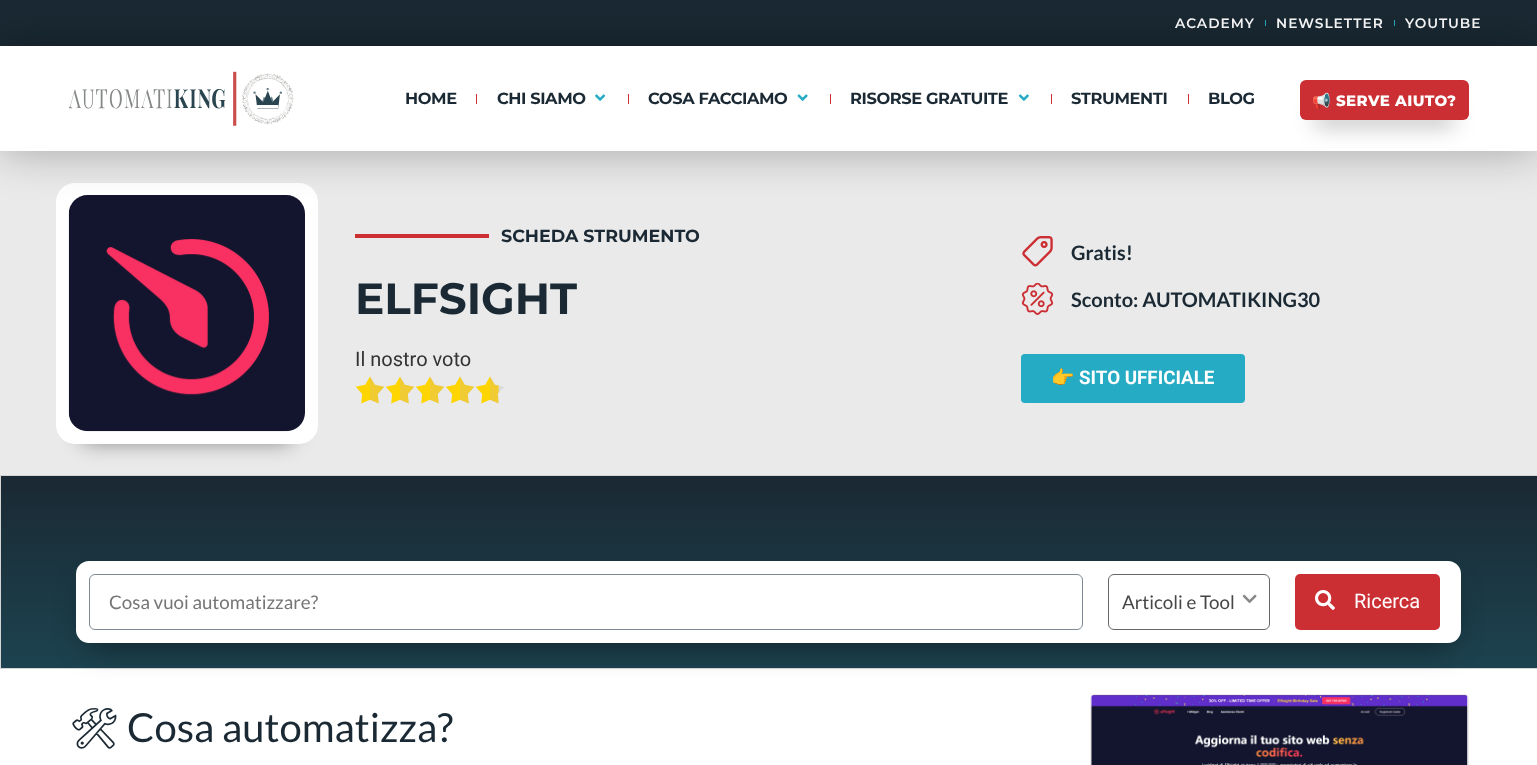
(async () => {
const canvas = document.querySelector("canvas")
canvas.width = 1537
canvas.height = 765
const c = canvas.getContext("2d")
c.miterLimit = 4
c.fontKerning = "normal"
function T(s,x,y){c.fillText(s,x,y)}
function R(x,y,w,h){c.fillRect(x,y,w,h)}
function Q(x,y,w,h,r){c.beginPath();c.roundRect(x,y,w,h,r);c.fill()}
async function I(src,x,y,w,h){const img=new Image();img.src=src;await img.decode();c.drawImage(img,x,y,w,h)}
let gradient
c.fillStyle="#fff"
R(0,0,1537,765)
c.fillStyle="#1a2933"
R(0,0,1537,46)
c.letterSpacing="1px"
c.font="600 13.75px Montserrat"
c.fillStyle="#fff"
T("ACADEMY",1175,28)
c.fillStyle="#25abc3"
R(1265,20,1,6)
c.fillStyle="#fff"
T("NEWSLETTER",1276,28)
c.fillStyle="#25abc3"
R(1394,20,1,6)
c.fillStyle="#fff"
T("YOUTUBE",1405,28)
c.fillStyle="#eaeaea"
R(0,151,1537,324)
c.fillStyle="#00000080"
c.filter="blur(11px)"
c.beginPath()
c.rect(83,233,208,208)
c.fill()
c.filter="none"
c.fillStyle="#fff"
Q(56,183,262,261,19)
await I("5.png",68,195,237,237)
c.fillStyle="#0000004d"
c.filter="blur(22.5px)"
c.beginPath()
c.rect(0,46,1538,105)
c.fill()
c.filter="none"
c.fillStyle="#fff"
R(0,46,1537,105)
await I("1.png",69,71,225,55)
c.letterSpacing="-0.4px"
c.font="bold 16.25px Montserrat"
c.fillStyle="#1a2933"
T("HOME",405,104)
c.fillStyle="#cb2e33"
R(476,94,1,10)
c.fillStyle="#1a2933"
T("CHI SIAMO",497,104)
await I("2.png",595,94,11,7)
c.fillStyle="#cb2e33"
R(628,94,1,10)
c.fillStyle="#1a2933"
T("COSA FACCIAMO",648,104)
await I("3.png",797,94,11,7)
c.fillStyle="#cb2e33"
R(830,94,1,10)
c.fillStyle="#1a2933"
T("RISORSE GRATUITE",850,104)
await I("4.png",1018,94,11,7)
c.fillStyle="#cb2e33"
R(1051,94,1,10)
c.fillStyle="#1a2933"
T("STRUMENTI",1071,104)
c.fillStyle="#cb2e33"
R(1188,94,1,10)
c.fillStyle="#1a2933"
T("BLOG",1208,104)
c.fillStyle="#00000066"
c.filter="blur(11px)"
c.beginPath()
c.rect(1315,114,139,10)
c.fill()
c.filter="none"
c.fillStyle="#cb2e33"
Q(1300,80,169,40,6)
c.letterSpacing="0.4px"
c.font="bold 15px Noto Color Emoji"
c.fillStyle="#fff"
T("📢",1312,106)
c.font="800 15px Montserrat"
T("SERVE AIUTO?",1336,106)
c.fillStyle="#cb2e33"
R(355,234,134,4)
c.letterSpacing="0px"
c.font="bold 17.5px Montserrat"
c.fillStyle="#1a2933"
T("SCHEDA STRUMENTO",501,242)
c.font="bold 43.75px Montserrat"
T("ELFSIGHT",355,314)
c.font="20px Roboto"
c.fillStyle="#333"
T("Il nostro voto",355,366)
await I("6.png",370,377,134,26)
await I("7.png",355,376,144,28)
await I("8.png",1022,236,31,31)
c.font="bold 20px Lato"
c.fillStyle="#1a2933"
T("Gratis!",1071,260)
await I("9.png",1021,283,33,32)
T("Sconto: AUTOMATIKING30",1071,307)
c.fillStyle="#25abc3"
Q(1021,354,224,49,4)
c.font="bold 18.75px Noto Color Emoji"
c.fillStyle="#fff"
T("👉",1051,384)
c.font="bold 18.75px Roboto"
T("SITO UFFICIALE",1079,384)
c.fillStyle="#1a2933"
R(1,476,1536,192)
gradient = c.createLinearGradient(769,476,769,668)
gradient.addColorStop(0,"#1a293333")
gradient.addColorStop(1,"#25abc333")
c.fillStyle = gradient
R(1,491,1536,177)
c.strokeStyle="#d5d5d5"
c.strokeRect(.5,475.5,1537,193)
c.fillStyle="#00000080"
c.filter="blur(16px)"
c.beginPath()
c.rect(89,588,1360,56)
c.fill()
c.filter="none"
c.fillStyle="#fff"
Q(76,561,1385,82,13)
c.beginPath()
c.roundRect(89.5,574.5,993,55,5.5)
c.strokeStyle="#7e8993"
c.stroke()
c.font="18.75px Lato"
c.fillStyle="#757575"
T("Cosa vuoi automatizzare?",109,609)
c.beginPath()
c.roundRect(1108.5,574.5,161,55,5.5)
c.strokeStyle="#666"
c.stroke()
c.fillStyle="#474747"
T("Articoli e Tool",1122,609)
await I("10.png",1242,594,15,10)
c.fillStyle="#cb2e33"
Q(1295,574,145,56,5)
await I("11.png",1315,590,20,20)
c.font="20px Roboto"
c.fillStyle="#fff"
T("Ricerca",1354,608)
c.font="500 40px Noto Emoji"
c.fillStyle="#1a2933"
T("🛠",69,742)
c.font="40px Lato"
T("Cosa automatizza?",127,742)
c.beginPath()
c.roundRect(1090.5,694.5,378,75,3.5)
c.strokeStyle="#eeebeb"
c.stroke()
await I("12.png",1091,695,377,70)
})()
